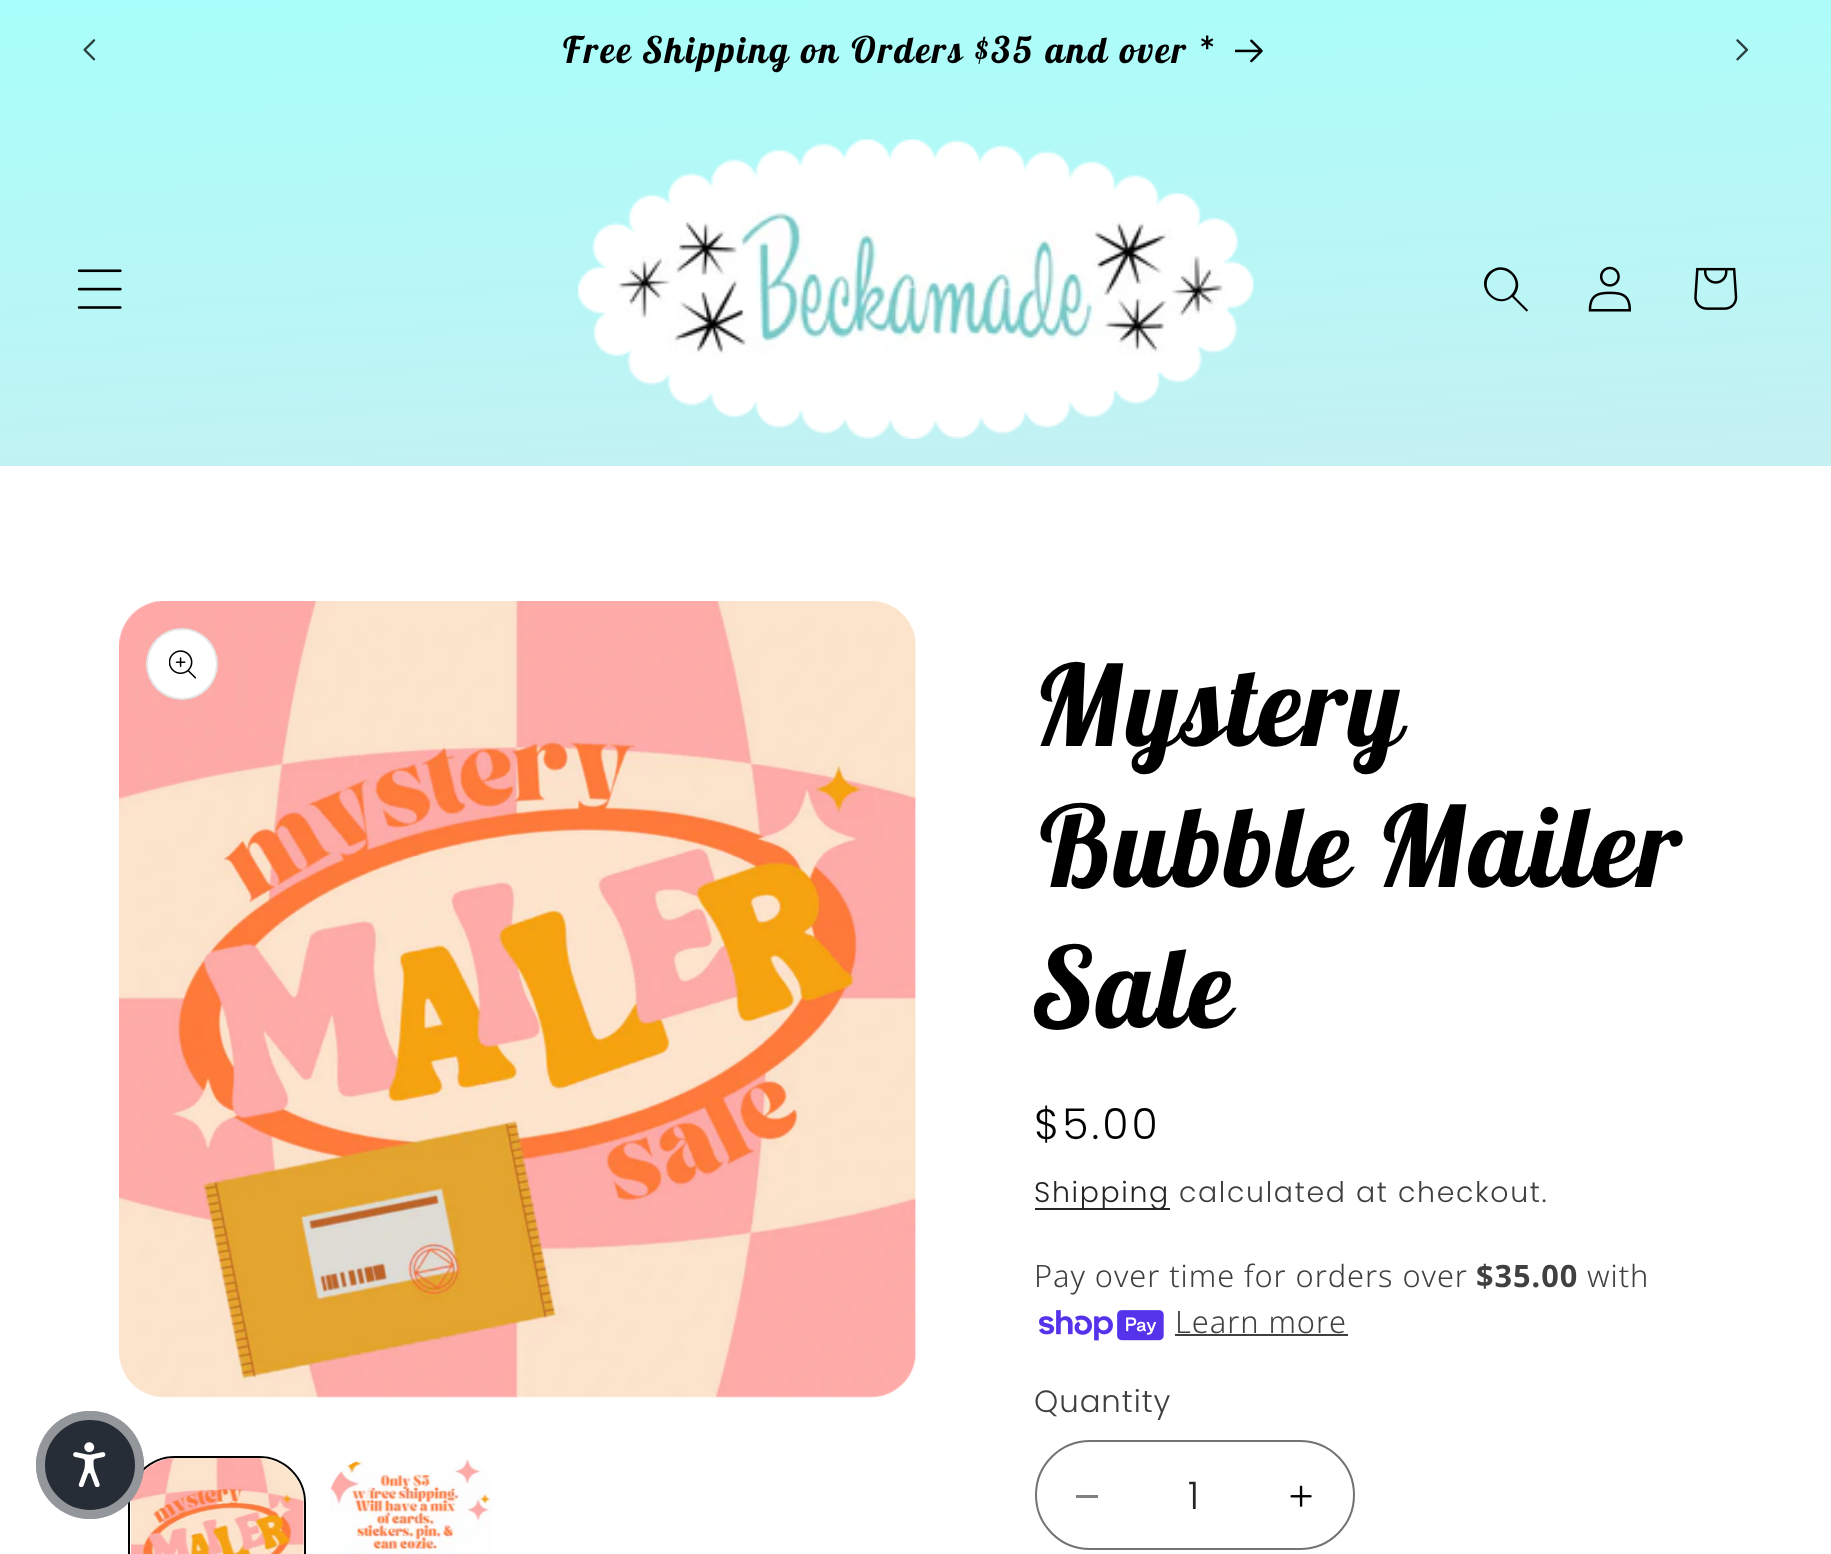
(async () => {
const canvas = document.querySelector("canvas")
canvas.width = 1831
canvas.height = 1554
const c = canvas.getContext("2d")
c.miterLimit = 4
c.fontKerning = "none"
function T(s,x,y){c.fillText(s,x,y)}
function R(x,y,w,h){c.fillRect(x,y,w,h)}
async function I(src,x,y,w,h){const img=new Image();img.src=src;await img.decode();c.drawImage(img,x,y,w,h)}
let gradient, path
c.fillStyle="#fff"
R(0,0,1831,1554)
gradient = c.createLinearGradient(959,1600,873,-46)
gradient.addColorStop(0,"#ffd3e2")
gradient.addColorStop(1,"#a8fffb")
c.fillStyle = gradient
R(0,0,1831,99)
await I("1.png",83,39,13,22)
c.letterSpacing="2.35px"
c.font="italic bold 36.6px Lobster Two"
c.fillStyle="#000"
T("Free Shipping on Orders $35 and over *",561,63)
await I("2.png",1235,39,28,24)
await I("3.png",1736,39,13,22)
gradient = c.createLinearGradient(959,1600,873,-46)
gradient.addColorStop(0,"#ffd3e2")
gradient.addColorStop(1,"#a8fffb")
c.fillStyle = gradient
R(0,99,1831,367)
await I("4.png",77,269,45,40)
await I("5.png",578,139,676,300)
c.fillStyle="#000"
path = new Path2D("M1511 295c-13 13-33-7-20-21c13-13 34 7 20 21m1 2c-16 14-38-10-23-25c16-15 39 8 25 24l14 14c0 1-2 2-2 1z")
c.fill(path,"evenodd")
await I("6.png",1588,266,43,46)
await I("7.png",1694,267,44,43)
c.beginPath()
c.roundRect(129,1457,176,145,46)
c.strokeStyle="#000"
c.lineWidth=2
c.stroke()
await I("11.png",131,1458,174,96)
c.fillStyle="#272d36"
c.beginPath()
c.arc(90,1465,54,0,7)
c.fill()
c.beginPath()
c.arc(90,1465,49.5,0,7)
c.strokeStyle="#ffffff80"
c.lineWidth=9
c.stroke()
await I("8.png",73,1442,33,45)
await I("9.png",119,601,797,797)
c.fillStyle="#fff"
c.beginPath()
c.arc(182,664,36,0,7)
c.fill()
c.beginPath()
c.arc(182,664,35,0,7)
c.strokeStyle="#0000001a"
c.lineWidth=2
c.stroke()
await I("10.png",169,650,27,29)
await I("12.png",330,1459,162,95)
c.letterSpacing="1.75px"
c.font="italic bold 112.5px Lobster Two"
c.fillStyle="#000"
T("Mystery",1034,746)
T("Bubble Mailer",1034,887)
T("Sale",1034,1028)
c.letterSpacing="3px"
c.font="300 42.5px Poppins"
T("$5.00",1034,1139)
c.fillStyle="#262626"
R(1035,1208,135,2)
c.letterSpacing="1.65px"
c.font="300 28.4px Poppins"
c.fillStyle="#252525"
T("Shipping",1034,1202)
c.fillStyle="#404040"
T("calculated at checkout.",1179,1202)
c.letterSpacing="0.95px"
c.font="300 30.75px Noto Sans"
T("Pay over time for orders over",1034,1287)
c.font="bold 30.75px Noto Sans"
T("$35.00",1476,1287)
c.font="300 30.75px Noto Sans"
T("with",1587,1287)
await I("13.png",1039,1310,125,31)
T("Learn more",1175,1333)
R(1175,1334,173,2)
c.font="300 30.75px Poppins"
T("Quantity",1034,1412)
c.fillStyle="#808080"
R(1076,1495,22,3)
await I("14.png",1290,1485,22,22)
c.beginPath()
c.roundRect(1036,1441,318,108,54)
c.strokeStyle="#737373"
c.stroke()
c.letterSpacing="0px"
c.font="300 38px Poppins"
c.fillStyle="#252525"
T("1",1188,1509)
})()
